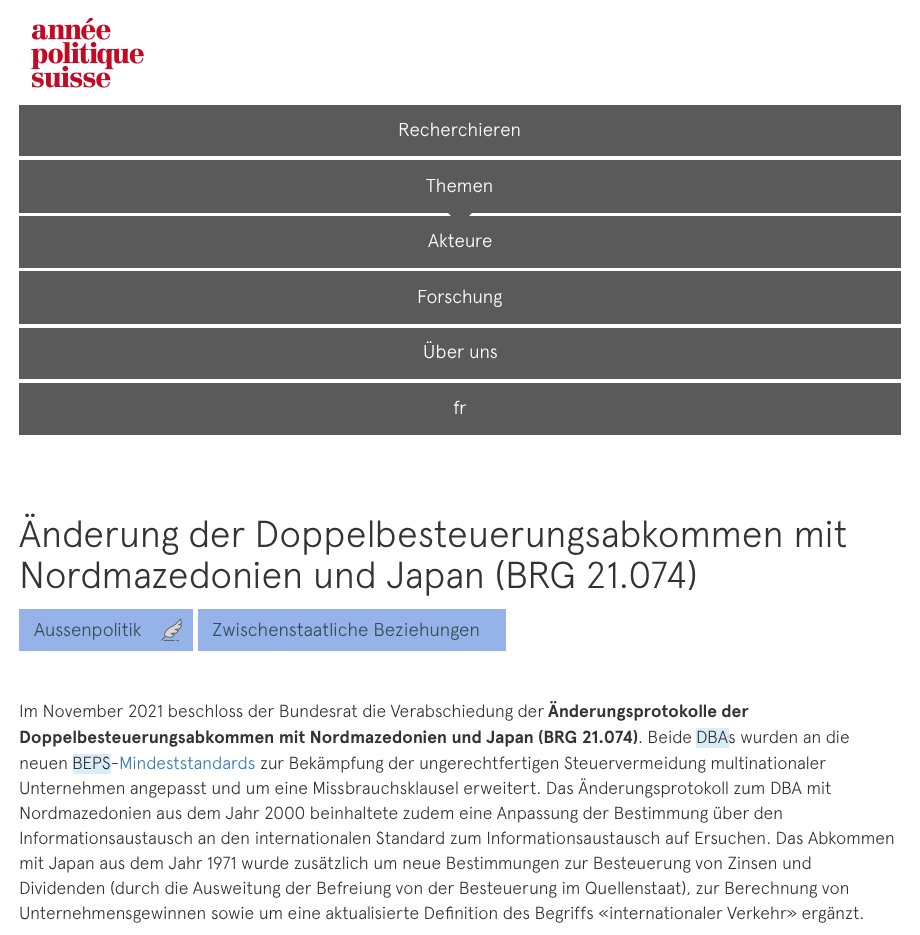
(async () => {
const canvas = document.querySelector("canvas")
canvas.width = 920
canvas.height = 935
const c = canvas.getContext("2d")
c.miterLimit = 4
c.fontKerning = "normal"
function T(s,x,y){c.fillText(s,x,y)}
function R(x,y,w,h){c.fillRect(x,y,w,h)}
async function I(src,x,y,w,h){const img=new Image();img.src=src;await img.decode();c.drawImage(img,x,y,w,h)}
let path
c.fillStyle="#fff"
R(0,0,920,935)
await I("1.png",31,18,113,70)
c.fillStyle="#5a5a5a"
R(19,105,882,51)
c.font="300 18.75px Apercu"
c.fillStyle="#fff"
T("Recherchieren",398,136)
c.fillStyle="#5a5a5a"
R(19,160,882,53)
c.fillStyle="#fff"
T("Themen",426,192)
c.fillStyle="#5a5a5a"
R(19,216,882,52)
path = new Path2D("M447.5 212.5h25l-12.5 12.5z")
c.fill(path)
c.fillStyle="#fff"
T("Akteure",428,247)
c.fillStyle="#5a5a5a"
R(19,271,882,53)
c.fillStyle="#fff"
T("Forschung",417,303)
c.fillStyle="#5a5a5a"
R(19,328,882,51)
c.fillStyle="#fff"
T("Über uns",423,358)
c.fillStyle="#5a5a5a"
R(19,383,882,52)
c.fillStyle="#fff"
T("fr",453,414)
c.font="300 37.5px Apercu"
c.fillStyle="#333"
T("Änderung der Doppelbesteuerungsabkommen mit",19,547)
T("Nordmazedonien und Japan (BRG 21.074)",19,588)
c.fillStyle="#96b3e9"
R(19,609,174,42)
c.font="300 18.75px Apercu"
c.fillStyle="#314e55"
T("Aussenpolitik",34,636)
await I("2.png",161,618,21,23)
c.fillStyle="#96b3e9"
R(198,609,308,42)
c.fillStyle="#314e55"
T("Zwischenstaatliche Beziehungen",212,636)
c.font="300 17.5px Apercu"
c.fillStyle="#333"
T("Im November 2021 beschloss der Bundesrat die Verabschiedung der",19,717)
c.font="bold 17.5px Apercu"
T("Änderungsprotokolle der",548,717)
T("Doppelbesteuerungsabkommen mit Nordmazedonien und Japan (BRG 21.074)",19,743)
c.font="300 17.5px Apercu"
T(". Beide",638,743)
c.fillStyle="#d9edf7"
R(696,728,33,20)
c.fillStyle="#333"
T("DBAs wurden an die",696,743)
T("neuen",19,769)
c.fillStyle="#d9edf7"
R(73,754,38,20)
c.fillStyle="#333"
T("BEPS-",72,769)
c.fillStyle="#337ab7"
T("Mindeststandards",119,769)
c.fillStyle="#333"
T("zur Bekämpfung der ungerechtfertigen Steuervermeidung multinationaler",260,769)
T("Unternehmen angepasst und um eine Missbrauchsklausel erweitert. Das Änderungsprotokoll zum DBA mit",19,794)
T("Nordmazedonien aus dem Jahr 2000 beinhaltete zudem eine Anpassung der Bestimmung über den",19,819)
T("Informationsaustausch an den internationalen Standard zum Informationsaustausch auf Ersuchen. Das Abkommen",19,844)
T("mit Japan aus dem Jahr 1971 wurde zusätzlich um neue Bestimmungen zur Besteuerung von Zinsen und",19,869)
T("Dividenden (durch die Ausweitung der Befreiung von der Besteuerung im Quellenstaat), zur Berechnung von",19,894)
T("Unternehmensgewinnen sowie um eine aktualisierte Definition des Begriffs «internationaler Verkehr» ergänzt.",19,919)
})()
